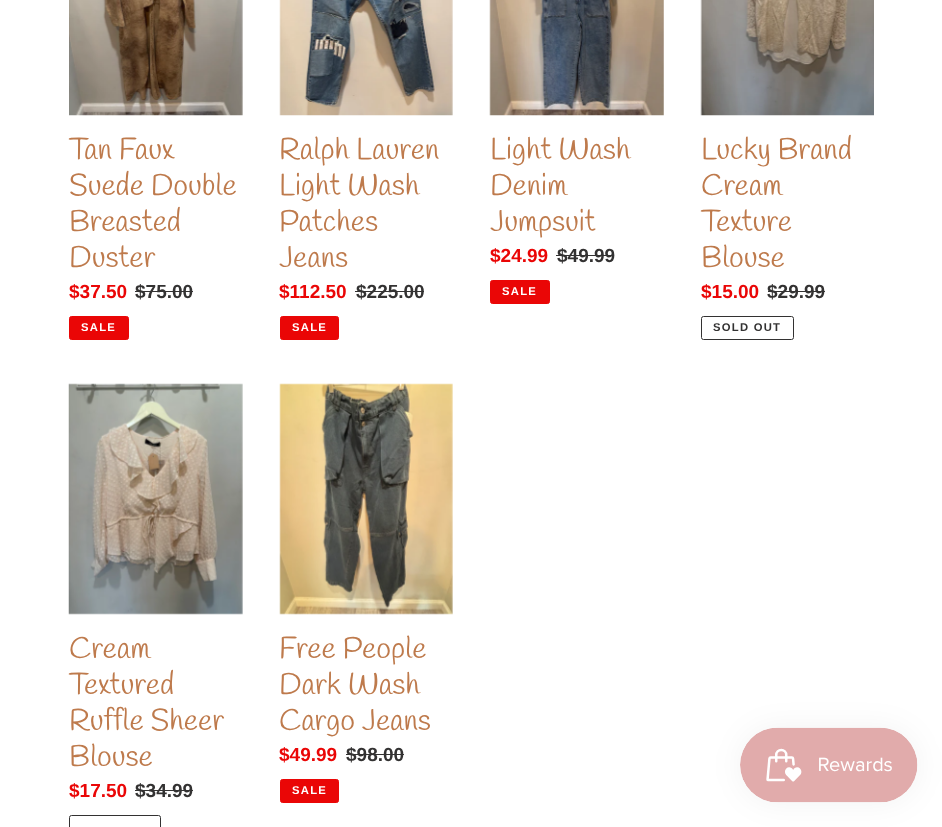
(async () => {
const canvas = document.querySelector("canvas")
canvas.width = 942
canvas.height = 827
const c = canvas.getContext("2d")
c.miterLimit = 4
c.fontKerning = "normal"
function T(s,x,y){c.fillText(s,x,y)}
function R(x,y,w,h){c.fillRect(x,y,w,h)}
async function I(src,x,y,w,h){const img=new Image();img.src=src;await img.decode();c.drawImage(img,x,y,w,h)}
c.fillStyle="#fff"
R(0,0,942,827)
await I("1.png",69,0,174,116)
c.font="30px Handlee"
c.fillStyle="#be7a4c"
T("Tan Faux",69,159)
T("Suede Double",69,195)
T("Breasted",69,231)
T("Duster",69,267)
c.font="bold 19px Liberation Sans"
c.fillStyle="#ea0606"
T("$37.50",69,298)
c.fillStyle="#333232"
T("$75.00",135,298)
R(135,291,58,1)
c.fillStyle="#ea0606"
c.beginPath()
c.roundRect(69.5,316.5,59,23,2)
c.fill()
c.strokeStyle="#ea0606"
c.stroke()
c.letterSpacing="1.25px"
c.font="bold 11.25px Liberation Sans"
c.fillStyle="#fff"
T("SALE",81,331)
await I("2.png",279,0,174,116)
c.letterSpacing="0px"
c.font="30px Handlee"
c.fillStyle="#be7a4c"
T("Ralph Lauren",279,159)
T("Light Wash",279,195)
T("Patches",279,231)
T("Jeans",279,267)
c.font="bold 19px Liberation Sans"
c.fillStyle="#ea0606"
T("$112.50",279,298)
c.fillStyle="#333232"
T("$225.00",356,298)
R(355,291,69,1)
c.fillStyle="#ea0606"
c.beginPath()
c.roundRect(280.5,316.5,58,23,2)
c.fill()
c.stroke()
c.letterSpacing="1.25px"
c.font="bold 11.25px Liberation Sans"
c.fillStyle="#fff"
T("SALE",292,331)
await I("3.png",489,0,175,116)
c.letterSpacing="0px"
c.font="30px Handlee"
c.fillStyle="#be7a4c"
T("Light Wash",490,159)
T("Denim",490,195)
T("Jumpsuit",490,231)
c.font="bold 19px Liberation Sans"
c.fillStyle="#ea0606"
T("$24.99",490,262)
c.fillStyle="#333232"
T("$49.99",557,262)
R(556,255,58,1)
c.fillStyle="#ea0606"
c.beginPath()
c.roundRect(490.5,280.5,59,23,2)
c.fill()
c.stroke()
c.letterSpacing="1.25px"
c.font="bold 11.25px Liberation Sans"
c.fillStyle="#fff"
T("SALE",502,295)
await I("4.png",700,0,174,116)
c.letterSpacing="0px"
c.font="30px Handlee"
c.fillStyle="#be7a4c"
T("Lucky Brand",701,159)
T("Cream",701,195)
T("Texture",701,231)
T("Blouse",701,267)
c.font="bold 19px Liberation Sans"
c.fillStyle="#ea0606"
T("$15.00",701,298)
c.fillStyle="#333232"
T("$29.99",767,298)
R(768,291,57,1)
c.beginPath()
c.roundRect(701.5,316.5,92,23,2)
c.strokeStyle="#333232"
c.stroke()
c.letterSpacing="1.25px"
c.font="bold 11.25px Liberation Sans"
T("SOLD OUT",713,331)
await I("5.png",68,383,175,232)
c.letterSpacing="0px"
c.font="30px Handlee"
c.fillStyle="#be7a4c"
T("Cream",69,658)
T("Textured",69,694)
T("Ruffle Sheer",69,730)
T("Blouse",69,766)
c.font="bold 19px Liberation Sans"
c.fillStyle="#ea0606"
T("$17.50",69,797)
c.fillStyle="#333232"
T("$34.99",135,797)
R(135,790,58,1)
c.beginPath()
c.roundRect(69.5,815.5,91,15,2)
c.stroke()
await I("6.png",279,383,174,232)
c.font="30px Handlee"
c.fillStyle="#be7a4c"
T("Free People",279,658)
T("Dark Wash",279,694)
T("Cargo Jeans",279,730)
c.font="bold 19px Liberation Sans"
c.fillStyle="#ea0606"
T("$49.99",279,761)
c.fillStyle="#333232"
T("$98.00",346,761)
R(346,754,58,1)
c.fillStyle="#ea0606"
c.beginPath()
c.roundRect(280.5,779.5,58,23,2)
c.fill()
c.strokeStyle="#ea0606"
c.stroke()
c.letterSpacing="1.25px"
c.font="bold 11.25px Liberation Sans"
c.fillStyle="#fff"
T("SALE",292,794)
c.fillStyle="#0000000d"
c.filter="blur(15.5px)"
c.beginPath()
c.roundRect(740,728,178,75,37.5)
c.fill()
c.filter="none"
await I("7.png",740,727,178,76)
})()
